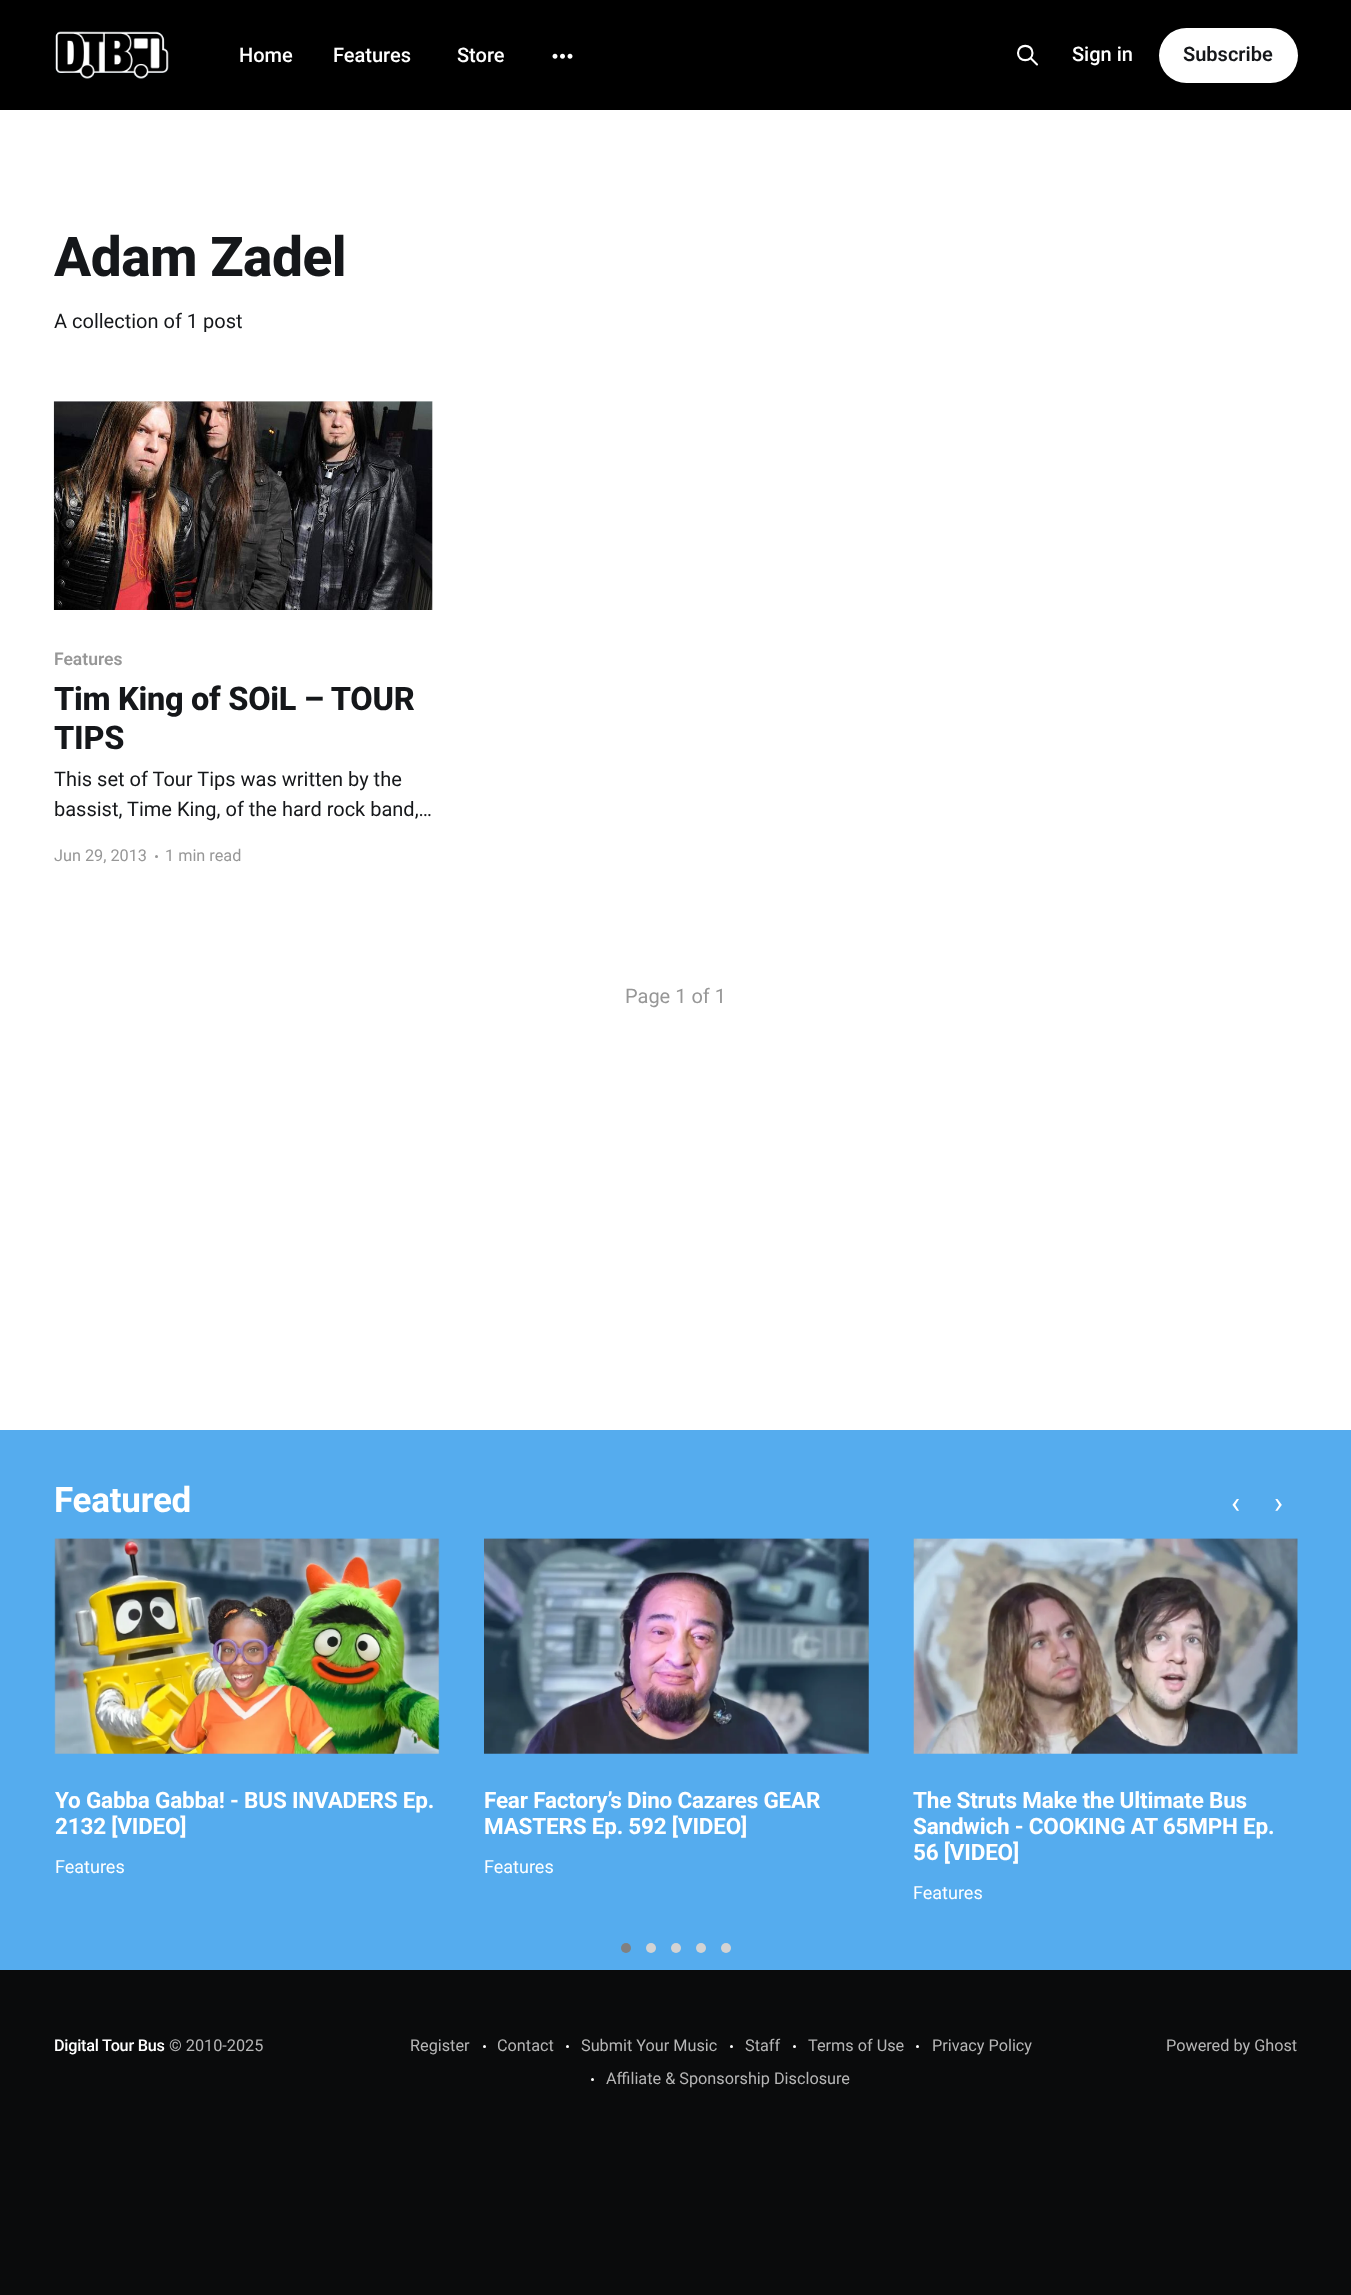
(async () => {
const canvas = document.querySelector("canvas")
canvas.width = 1351
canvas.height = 2295
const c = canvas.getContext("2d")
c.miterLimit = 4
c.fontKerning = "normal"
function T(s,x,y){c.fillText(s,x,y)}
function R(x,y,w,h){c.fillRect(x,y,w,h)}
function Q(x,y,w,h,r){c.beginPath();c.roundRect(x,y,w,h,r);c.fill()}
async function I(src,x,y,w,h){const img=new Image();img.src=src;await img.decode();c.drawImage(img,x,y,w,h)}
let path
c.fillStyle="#fff"
R(0,0,1351,2295)
c.fillStyle="#000"
R(0,0,1351,110)
await I("1.png",55,31,114,48)
c.font="500 20px Roboto"
c.fillStyle="#fff"
T("Home",239,62)
T("Features",333,62)
T("Store",457,62)
await I("2.png",552,53,21,6)
path = new Path2D("M1037 64.5l-6.5-6.5m2-5c0 9.5-14.5 9.5-14.5 0c0-9.5 14.5-9.5 14.5 0z")
c.strokeStyle="#fff"
c.lineWidth=2.1
c.lineCap="round"
c.lineJoin="round"
c.stroke(path)
T("Sign in",1072,61)
Q(1159,28,139,55,27.5)
c.font="600 20px Roboto"
c.fillStyle="#15171a"
T("Subscribe",1183,61)
c.letterSpacing="-0.5px"
c.font="800 55px Roboto"
T("Adam Zadel",54,276)
c.letterSpacing="0px"
c.font="20px Roboto"
T("A collection of 1 post",54,328)
c.fillStyle="#f1f1f1"
R(54,401,379,209)
await I("3.png",53,401,380,209)
c.font="600 17.5px Roboto"
c.fillStyle="#979797"
T("Features",54,665)
c.letterSpacing="-0.3px"
c.font="800 32.5px Roboto"
c.fillStyle="#15171a"
T("Tim King of SOiL – TOUR",54,710)
T("TIPS",54,749)
c.letterSpacing="0px"
c.font="20px Roboto"
T("This set of Tour Tips was written by the",54,786)
T("bassist, Time King, of the hard rock band,…",54,816)
c.font="16.25px Roboto"
c.fillStyle="#979797"
T("Jun 29, 2013",54,861)
c.beginPath()
c.arc(156.5,856.5,1.5,0,7)
c.fill()
T("1 min read",165,861)
c.font="20px Roboto"
T("Page 1 of 1",625,1003)
c.fillStyle="#55acee"
R(0,1430,1351,540)
c.letterSpacing="-0.25px"
c.font="bold 35px Roboto"
c.fillStyle="#fff"
T("Featured",54,1512)
c.letterSpacing="0px"
c.font="30px Roboto"
T("‹",1231,1513)
T("›",1274,1513)
await I("4.png",54,1538,386,216)
c.letterSpacing="-0.2px"
c.font="bold 22.5px Roboto"
T("Yo Gabba Gabba! - BUS INVADERS Ep.",55,1808)
T("2132 [VIDEO]",55,1834)
c.letterSpacing="0px"
c.font="18px Roboto"
T("Features",55,1873)
await I("5.png",484,1538,385,216)
c.letterSpacing="-0.2px"
c.font="bold 22.5px Roboto"
T("Fear Factory’s Dino Cazares GEAR",484,1808)
T("MASTERS Ep. 592 [VIDEO]",484,1834)
c.letterSpacing="0px"
c.font="18px Roboto"
T("Features",484,1873)
await I("6.png",913,1538,385,216)
c.letterSpacing="-0.2px"
c.font="bold 22.5px Roboto"
T("The Struts Make the Ultimate Bus",913,1808)
T("Sandwich - COOKING AT 65MPH Ep.",913,1834)
T("56 [VIDEO]",913,1860)
c.letterSpacing="0px"
c.font="18px Roboto"
T("Features",913,1899)
c.fillStyle="#808080"
c.beginPath()
c.arc(626,1948,5,0,7)
c.fill()
c.fillStyle="#d3d3d3"
c.beginPath()
c.arc(651,1948,5,0,7)
c.fill()
c.beginPath()
c.arc(676,1948,5,0,7)
c.fill()
c.beginPath()
c.arc(701,1948,5,0,7)
c.fill()
c.beginPath()
c.arc(726,1948,5,0,7)
c.fill()
c.fillStyle="#0a0b0c"
R(0,1970,1351,325)
c.letterSpacing="-0.25px"
c.font="500 16.25px Roboto"
c.fillStyle="#fff"
T("Digital Tour Bus",54,2051)
c.letterSpacing="0px"
c.font="16.25px Roboto"
c.fillStyle="#b6b6b6"
T("© 2010-2025",169,2051)
T("Register",410,2051)
c.fillStyle="#fff"
c.beginPath()
c.arc(484.5,2046.5,1.5,0,7)
c.fill()
c.fillStyle="#b6b6b6"
T("Contact",497,2051)
c.fillStyle="#fff"
c.beginPath()
c.arc(567.5,2046.5,1.5,0,7)
c.fill()
c.fillStyle="#b6b6b6"
T("Submit Your Music",581,2051)
c.fillStyle="#fff"
c.beginPath()
c.arc(731.5,2046.5,1.5,0,7)
c.fill()
c.fillStyle="#b6b6b6"
T("Staff",745,2051)
c.fillStyle="#fff"
c.beginPath()
c.arc(794.5,2046.5,1.5,0,7)
c.fill()
c.fillStyle="#b6b6b6"
T("Terms of Use",808,2051)
c.fillStyle="#fff"
c.beginPath()
c.arc(917.5,2046.5,1.5,0,7)
c.fill()
c.fillStyle="#b6b6b6"
T("Privacy Policy",932,2051)
c.fillStyle="#fff"
c.beginPath()
c.arc(592.5,2079.5,1.5,0,7)
c.fill()
c.fillStyle="#b6b6b6"
T("Affiliate & Sponsorship Disclosure",606,2084)
T("Powered by Ghost",1166,2051)
})()
